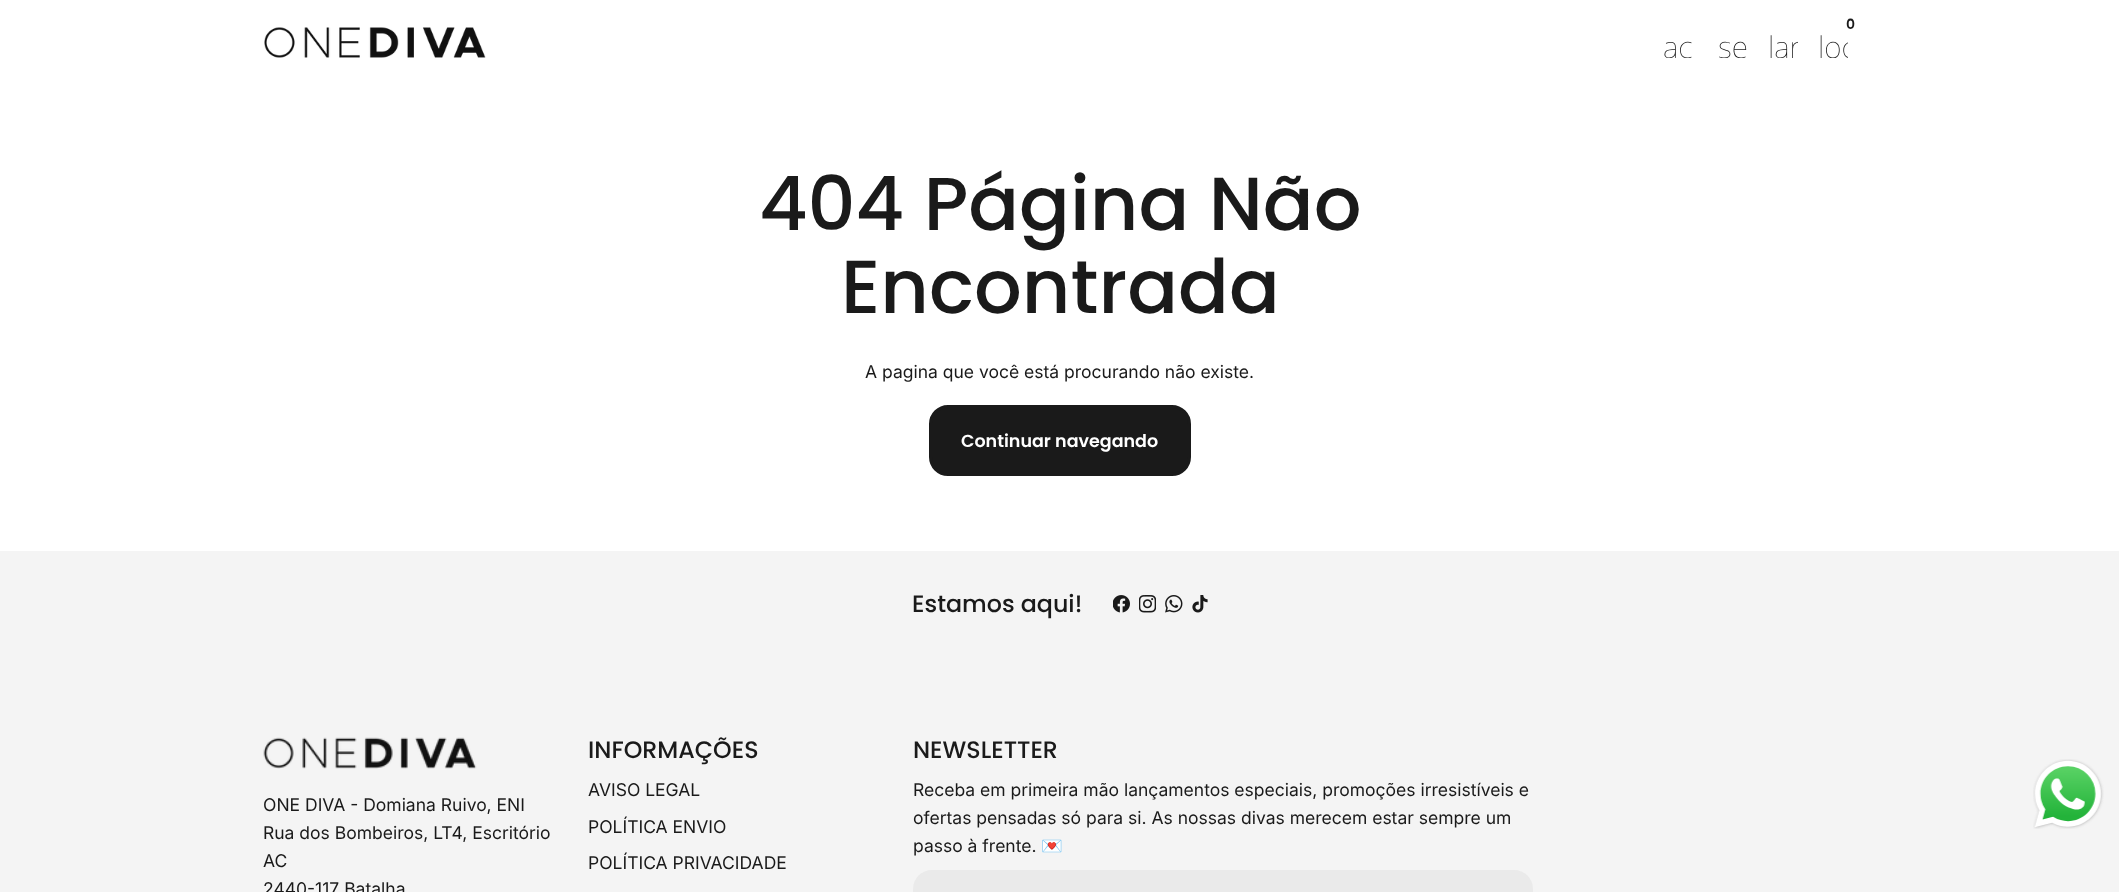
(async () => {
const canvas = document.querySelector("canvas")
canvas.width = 2119
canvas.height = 892
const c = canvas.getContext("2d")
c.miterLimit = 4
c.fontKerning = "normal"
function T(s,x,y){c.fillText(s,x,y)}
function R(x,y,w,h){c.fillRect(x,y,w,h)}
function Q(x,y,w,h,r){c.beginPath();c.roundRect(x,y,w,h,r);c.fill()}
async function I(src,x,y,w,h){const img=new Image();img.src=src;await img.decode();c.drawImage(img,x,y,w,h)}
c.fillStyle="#fff"
R(0,0,2119,892)
await I("1.png",264,27,222,31)
c.save()
c.beginPath()
c.rect(1663,28,30,30)
c.clip()
c.font="100 30px Noto Sans"
c.fillStyle="#1a1a1a"
T("ac",1663,58)
c.restore()
c.save()
c.beginPath()
c.rect(1718,28,30,30)
c.clip()
c.font="100 30px Noto Sans"
c.fillStyle="#1a1a1a"
T("se",1718,58)
c.restore()
c.save()
c.beginPath()
c.rect(1768,28,30,30)
c.clip()
c.font="100 30px Noto Sans"
c.fillStyle="#1a1a1a"
T("lan",1768,58)
c.restore()
c.font="600 14px Poppins"
c.fillStyle="#1a1a1a"
T("0",1846,29)
c.save()
c.beginPath()
c.rect(1818,28,30,30)
c.clip()
c.font="100 30px Noto Sans"
T("loc",1818,58)
c.restore()
c.font="500 75px Poppins"
T("404 Página Não",759,230)
T("Encontrada",841,313)
c.font="17.5px Inter"
T("A pagina que você está procurando não existe.",865,378)
c.beginPath()
c.roundRect(930.5,406.5,259,68,17.5)
c.fill()
c.strokeStyle="#1a1a1a"
c.lineWidth=3
c.stroke()
c.font="600 17.5px Poppins"
c.fillStyle="#fff"
T("Continuar navegando",961,447)
c.fillStyle="#f4f4f4"
R(0,551,2119,341)
c.font="500 23.75px Poppins"
c.fillStyle="#1a1a1a"
T("Estamos aqui!",912,612)
await I("2.png",1113,595,17,18)
await I("3.png",1139,595,17,18)
await I("4.png",1165,595,18,18)
await I("5.png",1192,595,16,18)
await I("6.png",263,737,214,32)
c.font="17.5px Inter"
T("ONE DIVA - Domiana Ruivo, ENI",263,811)
T("Rua dos Bombeiros, LT4, Escritório",263,839)
T("AC",263,867)
T("2440-117 Batalha",263,895)
c.font="500 23.75px Poppins"
T("INFORMAÇÕES",588,758)
c.font="17.5px Inter"
T("AVISO LEGAL",588,796)
T("POLÍTICA ENVIO",588,833)
T("POLÍTICA PRIVACIDADE",588,869)
c.font="500 23.75px Poppins"
T("NEWSLETTER",913,758)
c.font="17.5px Inter"
T("Receba em primeira mão lançamentos especiais, promoções irresistíveis e",913,796)
T("ofertas pensadas só para si. As nossas divas merecem estar sempre um",913,824)
T("passo à frente.",913,852)
c.font="17.5px Noto Color Emoji"
T("💌",1041,852)
c.fillStyle="#eaeaea"
Q(913,870,620,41,19)
await I("7.png",2033,759,71,70)
})()
